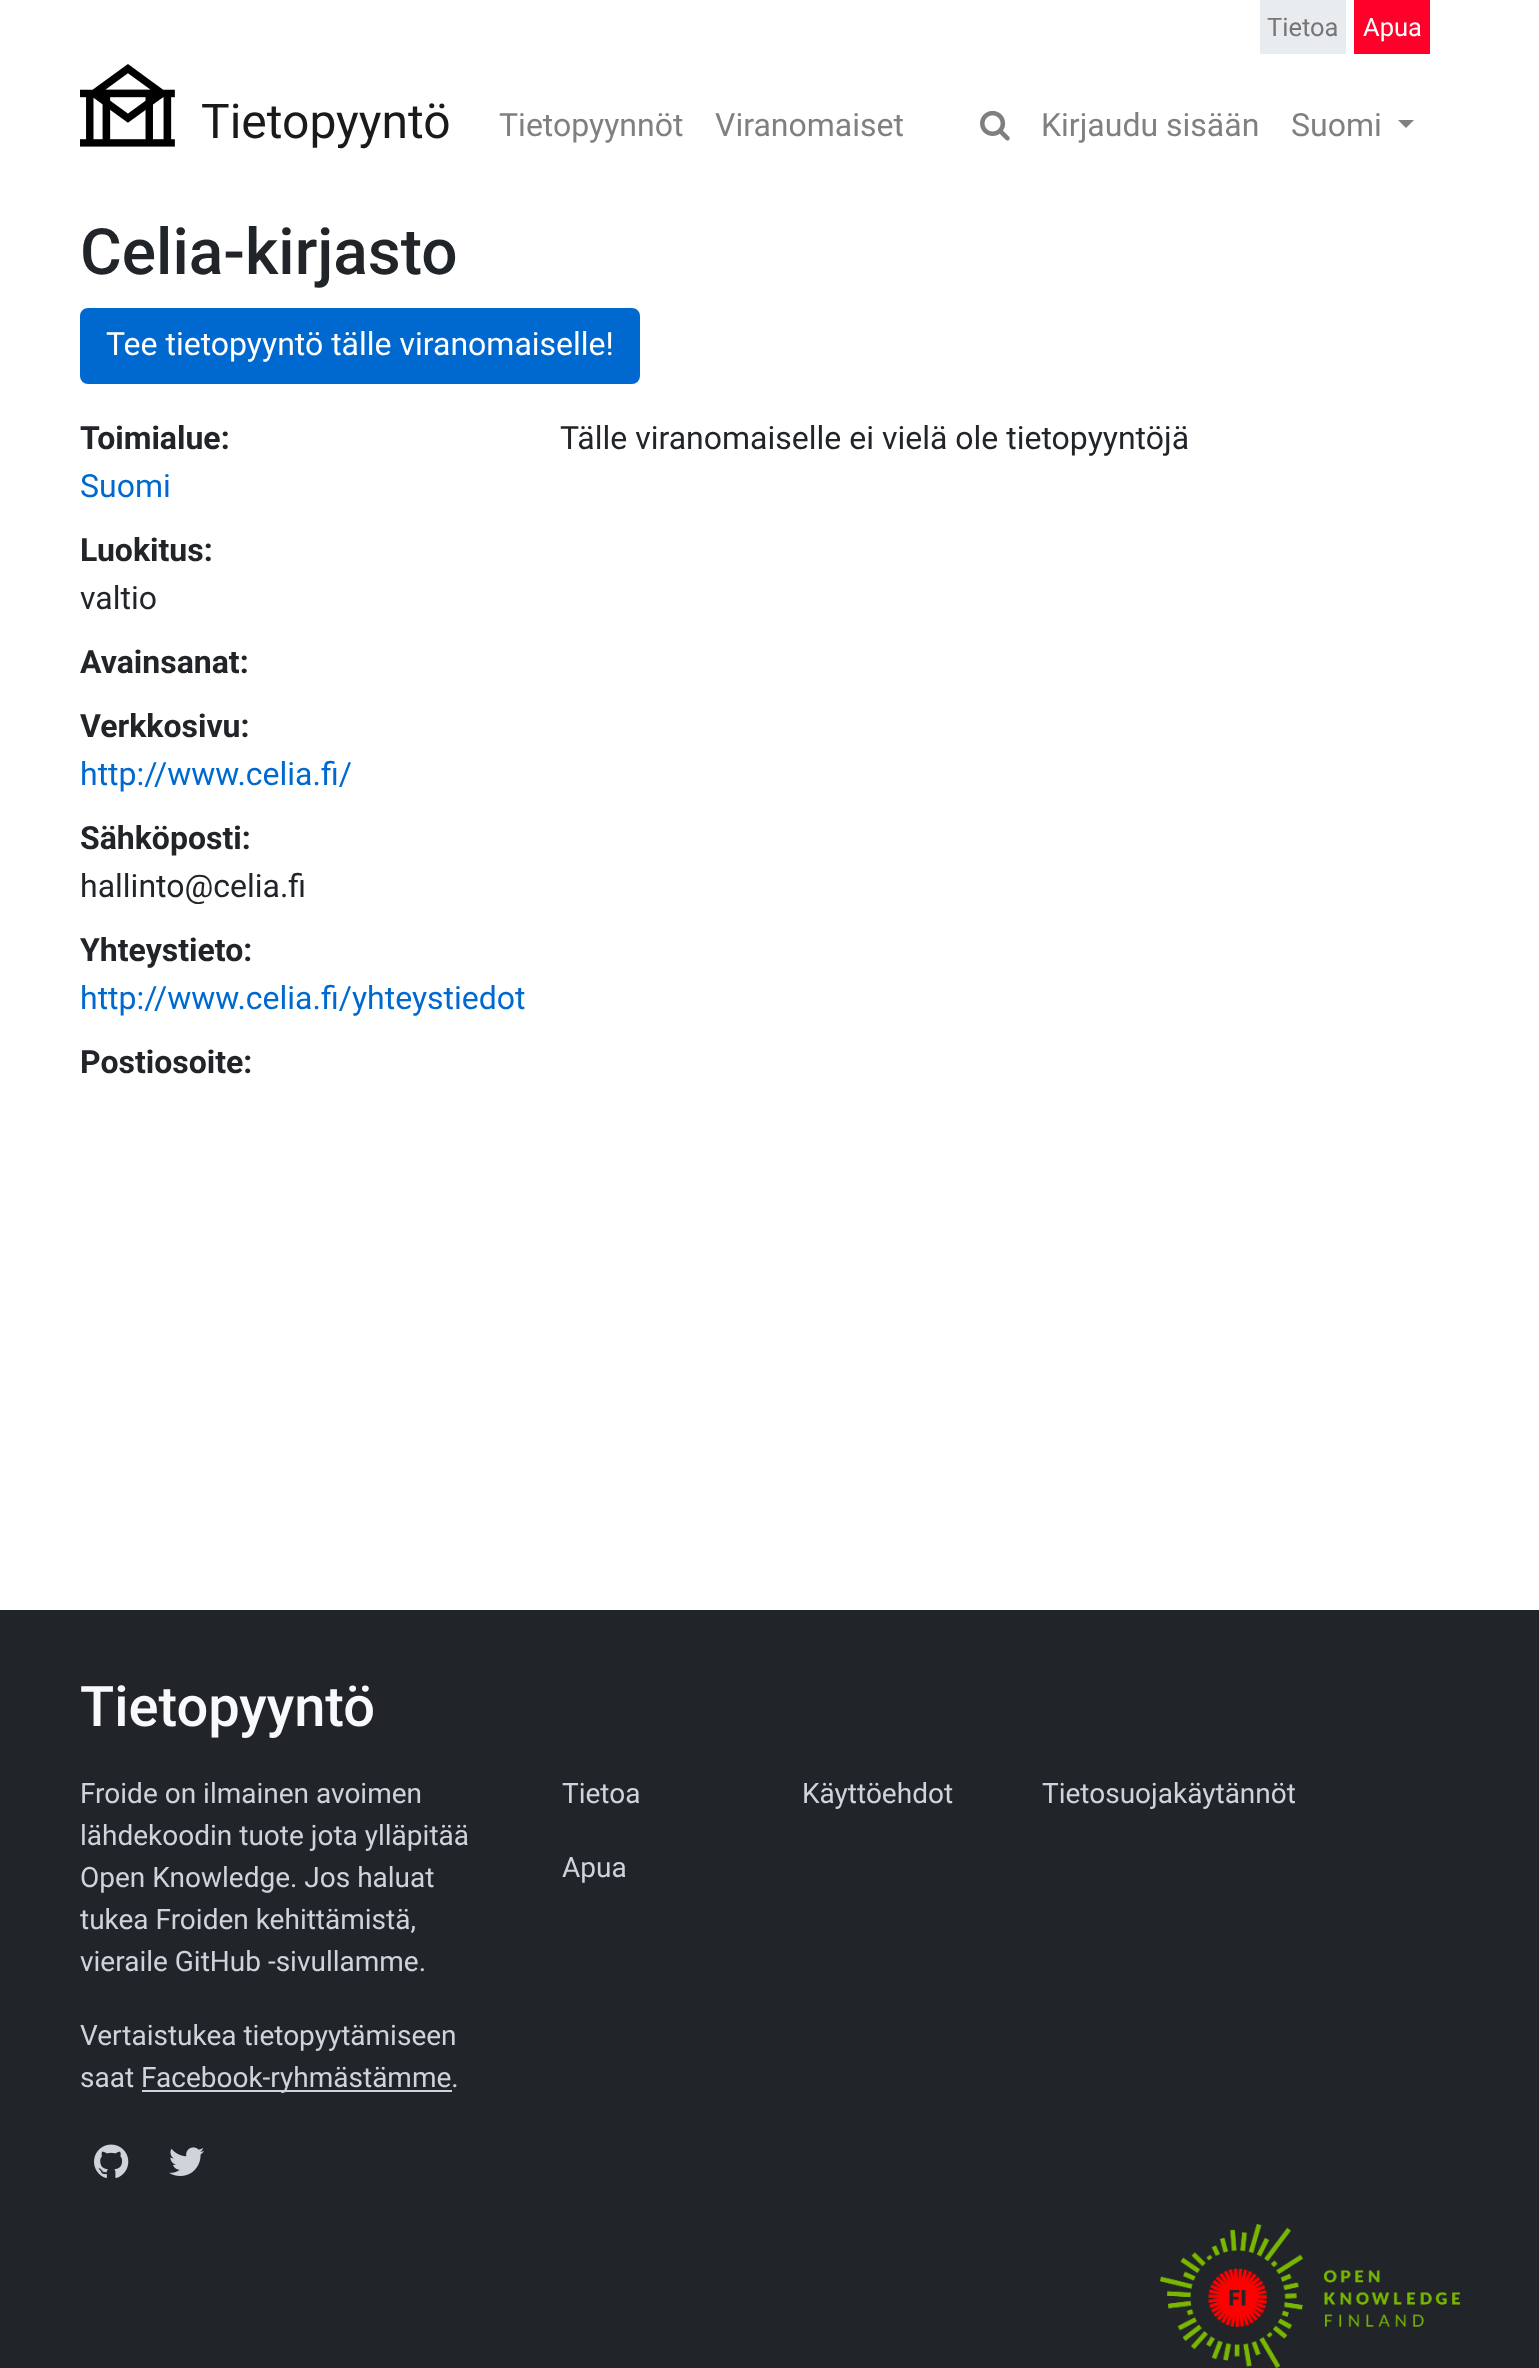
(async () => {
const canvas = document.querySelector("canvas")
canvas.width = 1539
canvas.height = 2368
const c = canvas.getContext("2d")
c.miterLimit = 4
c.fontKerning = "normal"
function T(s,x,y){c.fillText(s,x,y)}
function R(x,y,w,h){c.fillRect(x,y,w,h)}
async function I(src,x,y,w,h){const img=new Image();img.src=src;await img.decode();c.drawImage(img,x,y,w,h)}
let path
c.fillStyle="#fff"
R(0,0,1539,2368)
await I("1.png",80,64,95,83)
c.font="48px Roboto"
c.fillStyle="#1a1a1a"
T("Tietopyyntö",201,138)
c.fillStyle="#e9ecef"
R(1260,0,86,54)
c.font="25.5px Roboto"
c.fillStyle="#757678"
T("Tietoa",1267,36)
c.fillStyle="#ff002a"
R(1354,0,76,54)
c.fillStyle="#fff"
T("Apua",1363,36)
c.font="32px Roboto"
c.fillStyle="#808080"
T("Tietopyynnöt",499,136)
T("Viranomaiset",715,136)
await I("2.png",980,110,30,31)
T("Kirjaudu sisään",1041,136)
T("Suomi",1291,136)
path = new Path2D("M1398 120h16l-8 8z")
c.fill(path)
c.font="500 64px Roboto"
c.fillStyle="#212529"
T("Celia-kirjasto",80,274)
c.fillStyle="#0069d0"
c.beginPath()
c.roundRect(81,309,558,74,7)
c.fill()
c.strokeStyle="#0069d0"
c.lineWidth=2
c.stroke()
c.font="32px Roboto"
c.fillStyle="#fff"
T("Tee tietopyyntö tälle viranomaiselle!",106,355)
c.font="bold 32px Roboto"
c.fillStyle="#212529"
T("Toimialue:",80,449)
c.font="32px Roboto"
c.fillStyle="#0069d0"
T("Suomi",80,497)
c.font="bold 32px Roboto"
c.fillStyle="#212529"
T("Luokitus:",80,561)
c.font="32px Roboto"
T("valtio",80,609)
c.font="bold 32px Roboto"
T("Avainsanat:",80,673)
T("Verkkosivu:",80,737)
c.font="32px Roboto"
c.fillStyle="#0069d0"
T("http://www.celia.fi/",80,785)
c.font="bold 32px Roboto"
c.fillStyle="#212529"
T("Sähköposti:",80,849)
c.font="32px Roboto"
T("hallinto@celia.fi",80,897)
c.font="bold 32px Roboto"
T("Yhteystieto:",80,961)
c.font="32px Roboto"
c.fillStyle="#0069d0"
T("http://www.celia.fi/yhteystiedot",80,1009)
c.font="bold 32px Roboto"
c.fillStyle="#212529"
T("Postiosoite:",80,1073)
c.font="32px Roboto"
T("Tälle viranomaiselle ei vielä ole tietopyyntöjä",560,449)
R(0,1610,1539,758)
c.font="500 56px Roboto"
c.fillStyle="#f8f9fa"
T("Tietopyyntö",80,1726)
c.font="28px Roboto"
c.fillStyle="#ced4da"
T("Froide on ilmainen avoimen",80,1803)
T("lähdekoodin tuote jota ylläpitää",80,1845)
T("Open Knowledge. Jos haluat",80,1887)
T("tukea Froiden kehittämistä,",80,1929)
T("vieraile GitHub -sivullamme.",80,1971)
T("Vertaistukea tietopyytämiseen",80,2045)
T("saat",80,2087)
R(142,2090,310,2)
T("Facebook-ryhmästämme.",141,2087)
await I("3.png",94,2144,35,34)
await I("4.png",169,2147,35,29)
T("Tietoa",562,1803)
T("Käyttöehdot",802,1803)
T("Tietosuojakäytännöt",1042,1803)
T("Apua",562,1877)
await I("5.png",1160,2224,300,144)
})()
